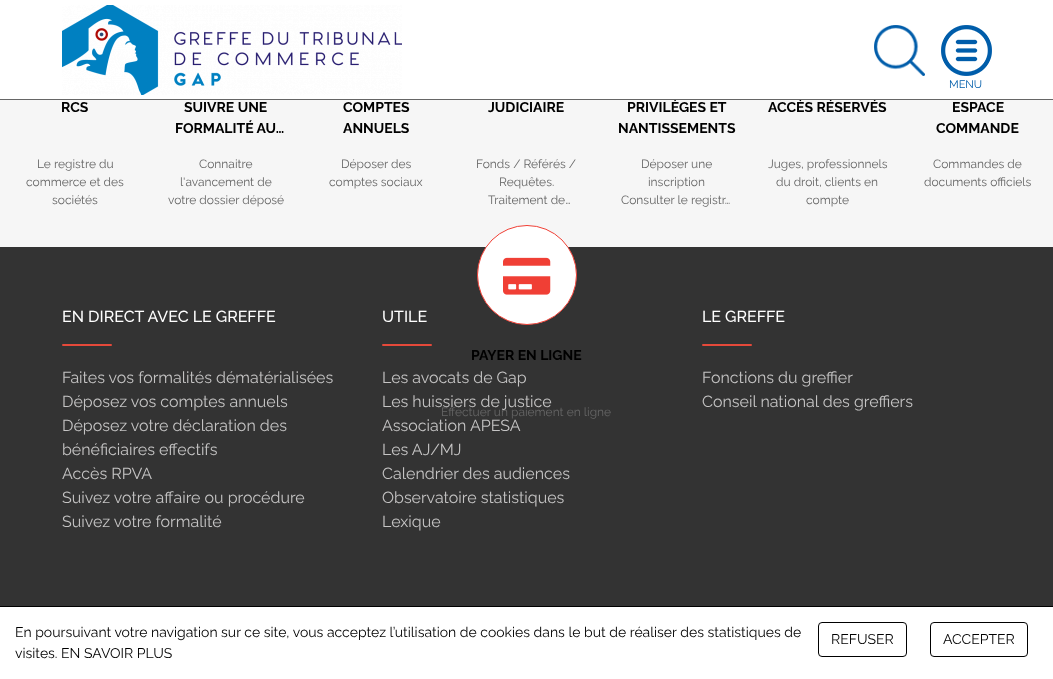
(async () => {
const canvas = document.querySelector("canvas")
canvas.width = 1053
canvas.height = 679
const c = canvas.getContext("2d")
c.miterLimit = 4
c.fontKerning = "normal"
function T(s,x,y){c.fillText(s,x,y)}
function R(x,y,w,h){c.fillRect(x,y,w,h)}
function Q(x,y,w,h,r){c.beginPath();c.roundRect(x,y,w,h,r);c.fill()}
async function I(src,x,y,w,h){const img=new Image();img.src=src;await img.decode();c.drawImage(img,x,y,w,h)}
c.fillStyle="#f6f6f6"
R(0,0,1053,679)
c.fillStyle="#fff"
R(0,0,1053,99)
c.font="bold 14px Raleway"
c.fillStyle="#000"
T("PRIVILÈGES ET",627,112)
T("ACCÈS RÉSERVÉS",768,112)
c.fillStyle="#666"
R(0,99,1053,1)
await I("1.png",62,5,340,90)
await I("2.png",874,25,51,51)
await I("3.png",941,25,51,51)
c.font="11px Raleway"
c.fillStyle="#005daa"
T("MENU",949,88)
c.font="bold 14px Raleway"
c.fillStyle="#000"
T("RCS",61,112)
c.font="12px Raleway"
c.fillStyle="#666"
T("Le registre du",37,168)
T("commerce et des",26,186)
T("sociétés",52,204)
c.font="bold 14px Raleway"
c.fillStyle="#000"
T("SUIVRE UNE",184,112)
T("FORMALITÉ AU…",175,133)
c.font="12px Raleway"
c.fillStyle="#666"
T("Connaitre",199,168)
T("l'avancement de",180,186)
T("votre dossier déposé",168,204)
c.font="bold 14px Raleway"
c.fillStyle="#000"
T("COMPTES",343,112)
T("ANNUELS",343,133)
c.font="12px Raleway"
c.fillStyle="#666"
T("Déposer des",341,168)
T("comptes sociaux",329,186)
c.font="bold 14px Raleway"
c.fillStyle="#000"
T("JUDICIAIRE",488,112)
c.font="12px Raleway"
c.fillStyle="#666"
T("Fonds / Référés /",476,168)
T("Requêtes.",499,186)
T("Traitement de…",488,204)
c.font="bold 14px Raleway"
c.fillStyle="#000"
T("NANTISSEMENTS",618,133)
c.font="12px Raleway"
c.fillStyle="#666"
T("Déposer une",641,168)
T("inscription",648,186)
T("Consulter le registr…",621,204)
T("Juges, professionnels",768,168)
T("du droit, clients en",776,186)
T("compte",806,204)
c.font="bold 14px Raleway"
c.fillStyle="#000"
T("ESPACE",952,112)
T("COMMANDE",936,133)
c.font="12px Raleway"
c.fillStyle="#666"
T("Commandes de",933,168)
T("documents officiels",924,186)
c.fillStyle="#333"
R(0,247,1053,359)
c.fillStyle="#fff"
c.beginPath()
c.arc(527,275,49.5,0,7)
c.fill()
c.strokeStyle="#f03f35"
c.stroke()
await I("4.png",503,257,48,38)
c.font="bold 14px Raleway"
c.fillStyle="#000"
T("PAYER EN LIGNE",471,360)
c.font="12px Raleway"
c.fillStyle="#666"
T("Effectuer un paiement en ligne",441,416)
c.font="500 16px Raleway"
c.fillStyle="#fff"
T("EN DIRECT AVEC LE GREFFE",62,322)
c.fillStyle="#e5493a"
Q(62,344,50,2,1)
c.font="16px Raleway"
c.fillStyle="#c5c4c4"
T("Faites vos formalités dématérialisées",62,383)
T("Déposez vos comptes annuels",62,407)
T("Déposez votre déclaration des",62,431)
T("bénéficiaires effectifs",62,455)
T("Accès RPVA",62,479)
T("Suivez votre affaire ou procédure",62,503)
T("Suivez votre formalité",62,527)
c.font="500 16px Raleway"
c.fillStyle="#fff"
T("UTILE",382,322)
c.fillStyle="#e5493a"
Q(382,344,50,2,1)
c.font="16px Raleway"
c.fillStyle="#c5c4c4"
T("Les avocats de Gap",382,383)
T("Les huissiers de justice",382,407)
T("Association APESA",382,431)
T("Les AJ/MJ",382,455)
T("Calendrier des audiences",382,479)
T("Observatoire statistiques",382,503)
T("Lexique",382,527)
c.font="500 16px Raleway"
c.fillStyle="#fff"
T("LE GREFFE",702,322)
c.fillStyle="#e5493a"
Q(702,344,50,2,1)
c.font="16px Raleway"
c.fillStyle="#c5c4c4"
T("Fonctions du greffier",702,383)
T("Conseil national des greffiers",702,407)
c.fillStyle="#fff"
R(0,607,1053,72)
c.fillStyle="#000"
R(0,606,1053,1)
c.font="14px Raleway"
T("En poursuivant votre navigation sur ce site, vous acceptez l’utilisation de cookies dans le but de réaliser des statistiques de",15,637)
T("visites. EN SAVOIR PLUS",15,658)
c.beginPath()
c.roundRect(818.5,622.5,88,34,3.5)
c.strokeStyle="#000"
c.stroke()
T("REFUSER",831,644)
c.beginPath()
c.roundRect(930.5,622.5,97,34,3.5)
c.stroke()
T("ACCEPTER",943,644)
})()
